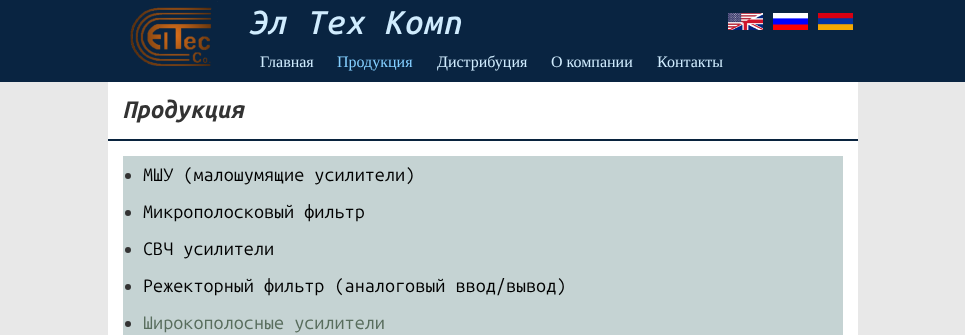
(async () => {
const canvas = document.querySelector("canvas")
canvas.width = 965
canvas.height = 335
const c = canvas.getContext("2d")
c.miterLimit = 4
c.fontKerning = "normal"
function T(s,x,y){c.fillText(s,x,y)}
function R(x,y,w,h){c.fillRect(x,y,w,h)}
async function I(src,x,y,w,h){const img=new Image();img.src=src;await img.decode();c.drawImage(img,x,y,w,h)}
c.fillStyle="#e8e8e8"
R(0,0,965,335)
c.fillStyle="#092441"
R(0,0,965,82)
await I("1.png",130,1,88,66)
c.letterSpacing="1px"
c.font="italic 500 33px Ubuntu Mono"
c.fillStyle="#d0ecfe"
T("Эл Тех Комп",248,34)
await I("2.png",728,13,35,17)
await I("3.png",773,13,35,17)
await I("4.png",818,13,35,17)
c.letterSpacing="0px"
c.font="16px Liberation Serif"
T("Главная",260,67)
c.fillStyle="#84cfff"
T("Продукция",337,67)
c.fillStyle="#d0ecfe"
T("Дистрибуция",437,67)
T("О компании",551,67)
T("Контакты",657,67)
c.fillStyle="#fff"
R(108,82,750,253)
c.fillStyle="#09233e"
R(108,139,750,2)
c.font="italic bold 24px Ubuntu Mono"
c.fillStyle="#333"
T("Продукция",123,118)
c.fillStyle="#c5d3d3"
R(123,156,720,179)
c.fillStyle="#333"
c.beginPath()
c.arc(128,176,3,0,7)
c.fill()
c.font="18px Ubuntu Mono"
c.fillStyle="#000"
T("МШУ (малошумящие усилители)",143,181)
c.fillStyle="#333"
c.beginPath()
c.arc(128,213,3,0,7)
c.fill()
c.fillStyle="#000"
T("Микрополосковый фильтр",143,218)
c.fillStyle="#333"
c.beginPath()
c.arc(128,250,3,0,7)
c.fill()
c.fillStyle="#000"
T("СВЧ усилители",143,255)
c.fillStyle="#333"
c.beginPath()
c.arc(128,287,3,0,7)
c.fill()
c.fillStyle="#000"
T("Режекторный фильтр (аналоговый ввод/вывод)",143,292)
c.fillStyle="#333"
c.beginPath()
c.arc(128,324,3,0,7)
c.fill()
c.fillStyle="#586d5d"
T("Широкополосные усилители",143,329)
})()
